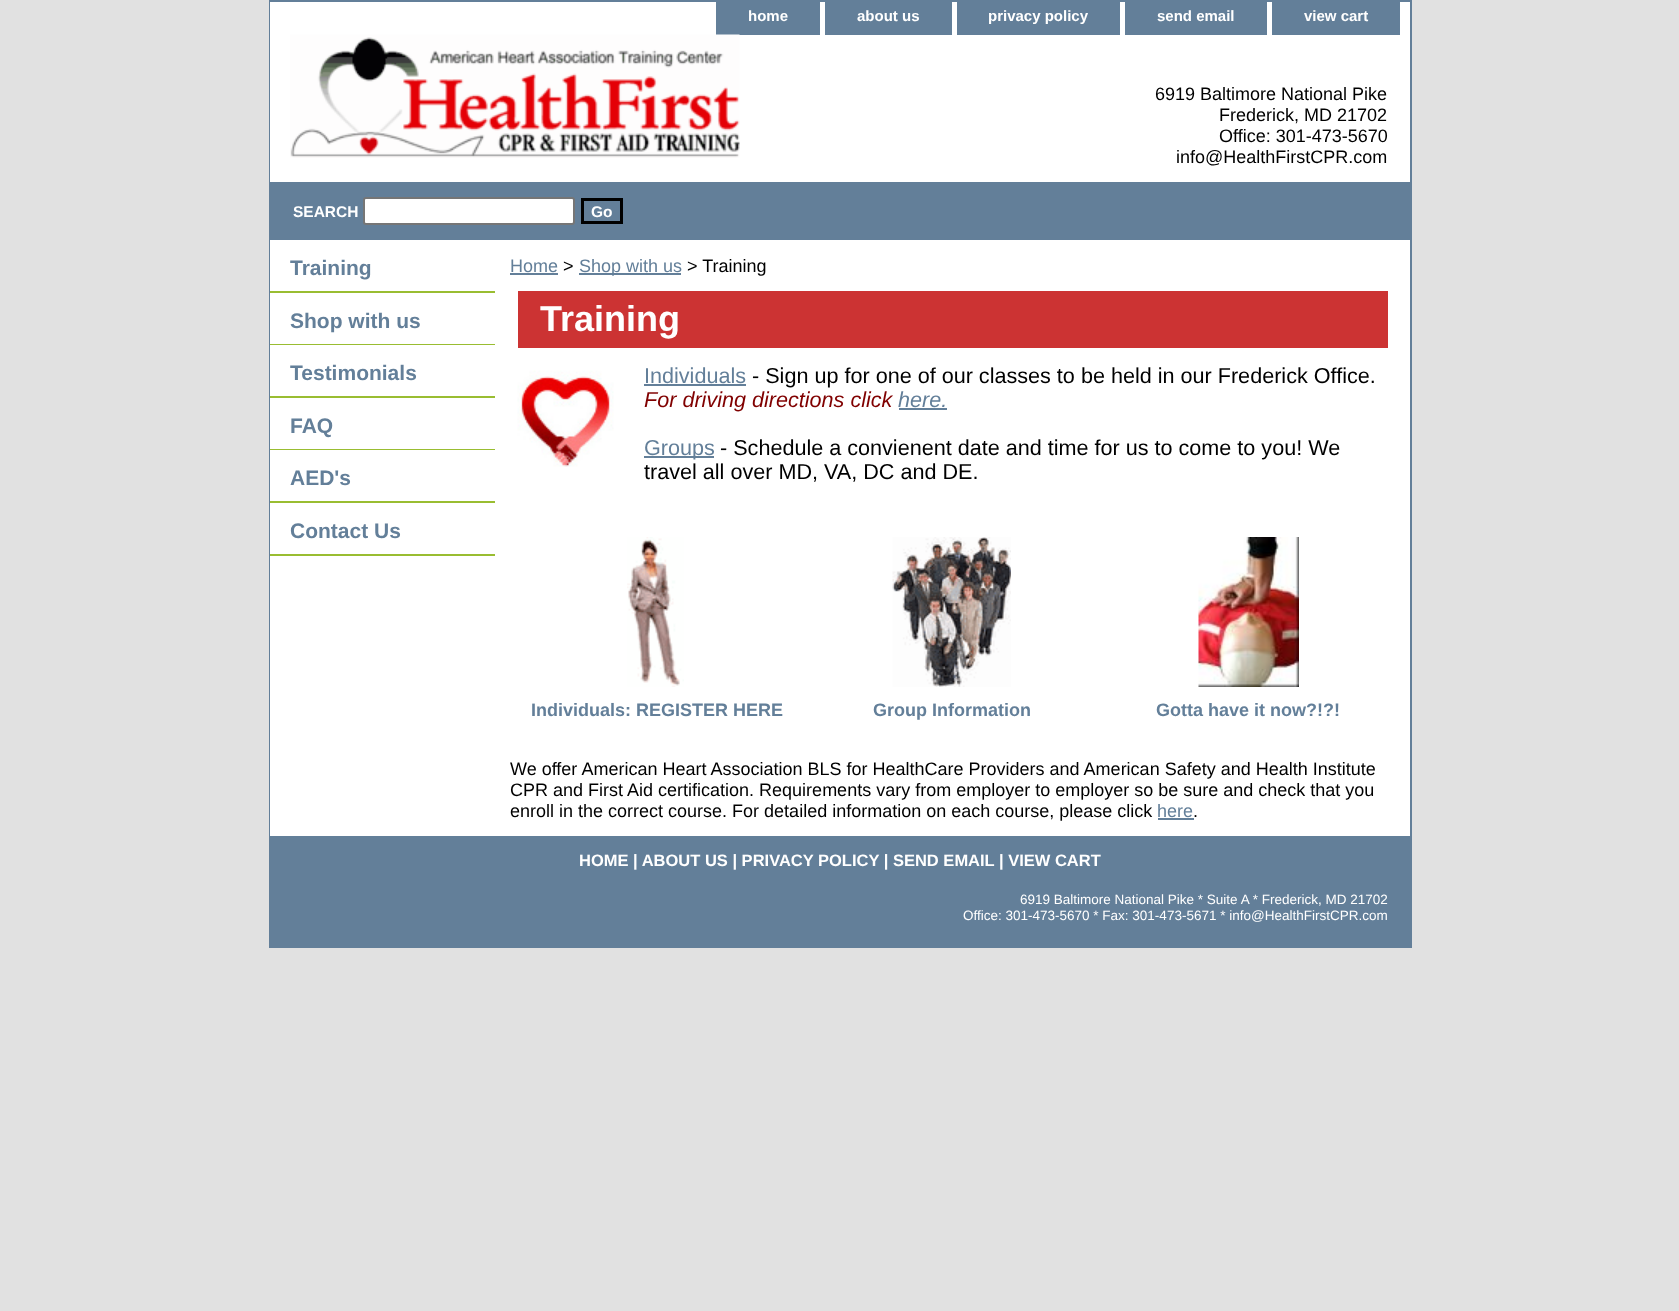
(async () => {
const canvas = document.querySelector("canvas")
canvas.width = 1679
canvas.height = 1311
const c = canvas.getContext("2d")
c.miterLimit = 4
c.fontKerning = "normal"
function T(s,x,y){c.fillText(s,x,y)}
function R(x,y,w,h){c.fillRect(x,y,w,h)}
async function I(src,x,y,w,h){const img=new Image();img.src=src;await img.decode();c.drawImage(img,x,y,w,h)}
c.fillStyle="#e1e1e1"
R(0,0,1679,1311)
c.strokeStyle="#637f99"
c.lineWidth=2
c.strokeRect(270,1,1141,946)
c.fillStyle="#fff"
R(270,2,1140,180)
c.fillStyle="#637f99"
R(716,2,104,33)
c.font="bold 15px Liberation Sans"
c.fillStyle="#fff"
T("home",748,21)
c.fillStyle="#637f99"
R(825,2,127,33)
c.fillStyle="#fff"
T("about us",857,21)
c.fillStyle="#637f99"
R(957,2,163,33)
c.fillStyle="#fff"
T("privacy policy",988,21)
c.fillStyle="#637f99"
R(1125,2,142,33)
c.fillStyle="#fff"
T("send email",1157,21)
c.fillStyle="#637f99"
R(1272,2,128,33)
c.fillStyle="#fff"
T("view cart",1304,21)
await I("1.png",290,34,450,124)
c.font="18px Liberation Sans"
c.fillStyle="#000"
T("6919 Baltimore National Pike",1155,100)
T("Frederick, MD 21702",1219,121)
T("Office: 301-473-5670",1219,142)
T("info@HealthFirstCPR.com",1176,163)
c.fillStyle="#637f99"
R(271,182,1139,58)
c.font="bold 15.5px Liberation Sans"
c.fillStyle="#fff"
T("SEARCH",293,217)
c.beginPath()
c.roundRect(364,198,210,26,2)
c.fill()
c.strokeStyle="#767676"
c.stroke()
c.strokeStyle="#000"
c.lineWidth=3
c.strokeRect(582.5,199.5,39,23)
T("Go",591,217)
R(270,240,1140,596)
c.fillStyle="#99bd31"
R(270,291,225,2)
c.font="bold 21px Liberation Sans"
c.fillStyle="#637f99"
T("Training",290,275)
c.fillStyle="#99bd31"
R(270,344,225,1)
c.fillStyle="#637f99"
T("Shop with us",290,328)
c.fillStyle="#99bd31"
R(270,396,225,2)
c.fillStyle="#637f99"
T("Testimonials",290,380)
c.fillStyle="#99bd31"
R(270,449,225,1)
c.fillStyle="#637f99"
T("FAQ",290,433)
c.fillStyle="#99bd31"
R(270,501,225,2)
c.fillStyle="#637f99"
T("AED's",290,485)
c.fillStyle="#99bd31"
R(270,554,225,2)
c.fillStyle="#637f99"
T("Contact Us",290,538)
c.font="18px Liberation Sans"
T("Home",510,272)
R(510,273,48,2)
c.fillStyle="#000"
T(">",563,272)
c.fillStyle="#637f99"
R(579,273,102,2)
T("Shop with us",579,272)
c.fillStyle="#000"
T("> Training",687,272)
c.fillStyle="#c33"
R(518,291,870,57)
c.font="bold 36px Liberation Sans"
c.fillStyle="#fff"
T("Training",540,331)
await I("2.png",517,370,97,97)
c.font="21.6px Liberation Sans"
c.fillStyle="#637f99"
T("Individuals",644,383)
R(644,384,102,2)
c.fillStyle="#000"
T("- Sign up for one of our classes to be held in our Frederick Office.",752,383)
c.font="italic 21.6px Liberation Sans"
c.fillStyle="#800000"
T("For driving directions click",644,407)
c.fillStyle="#637f99"
T("here.",898,407)
R(899,408,48,2)
R(644,456,70,2)
c.font="21.6px Liberation Sans"
T("Groups",644,455)
c.fillStyle="#000"
T("- Schedule a convienent date and time for us to come to you! We",720,455)
T("travel all over MD, VA, DC and DE.",644,479)
await I("3.png",627,537,57,150)
c.font="bold 18px Liberation Sans"
c.fillStyle="#637f99"
T("Individuals: REGISTER HERE",531,716)
await I("4.png",892,537,119,150)
T("Group Information",873,716)
await I("5.png",1198,537,101,150)
T("Gotta have it now?!?!",1156,716)
c.font="18px Liberation Sans"
c.fillStyle="#000"
T("We offer American Heart Association BLS for HealthCare Providers and American Safety and Health Institute",510,775)
T("CPR and First Aid certification. Requirements vary from employer to employer so be sure and check that you",510,796)
T("enroll in the correct course. For detailed information on each course, please click",510,817)
c.fillStyle="#637f99"
T("here",1157,817)
R(1158,818,36,2)
c.fillStyle="#000"
T(".",1193,817)
c.fillStyle="#637f99"
R(271,836,1139,110)
c.font="bold 16.5px Liberation Sans"
c.fillStyle="#fff"
T("HOME | ABOUT US | PRIVACY POLICY | SEND EMAIL | VIEW CART",579,866)
c.font="13.5px Liberation Sans"
T("6919 Baltimore National Pike * Suite A * Frederick, MD 21702",1020,904)
T("Office: 301-473-5670 * Fax: 301-473-5671 * info@HealthFirstCPR.com",963,920)
})()
